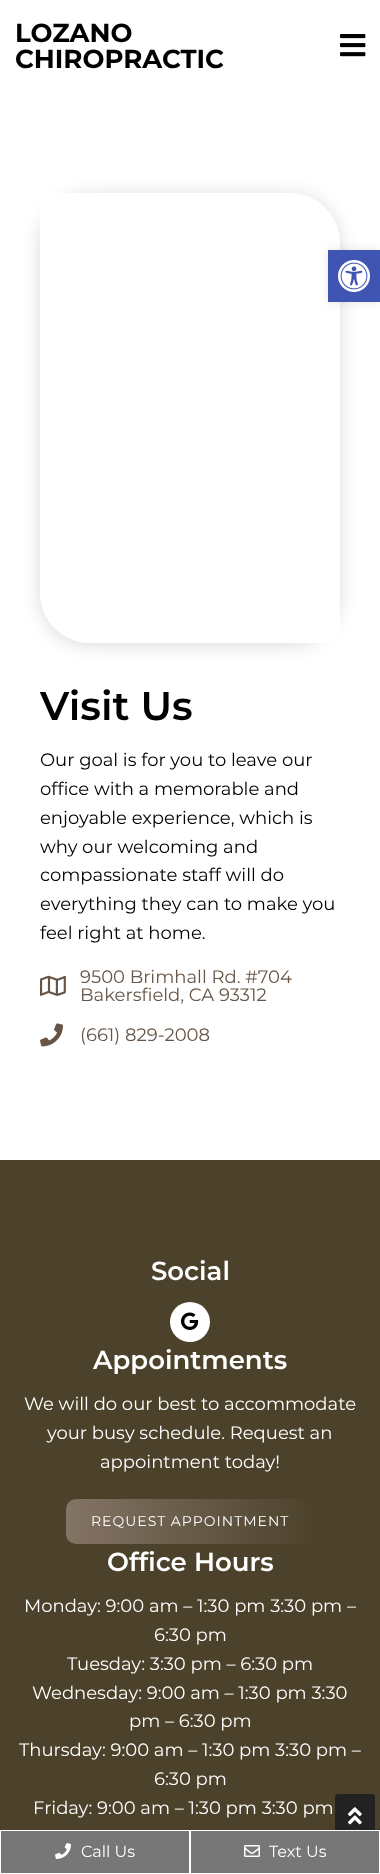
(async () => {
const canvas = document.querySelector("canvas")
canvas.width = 380
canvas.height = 1874
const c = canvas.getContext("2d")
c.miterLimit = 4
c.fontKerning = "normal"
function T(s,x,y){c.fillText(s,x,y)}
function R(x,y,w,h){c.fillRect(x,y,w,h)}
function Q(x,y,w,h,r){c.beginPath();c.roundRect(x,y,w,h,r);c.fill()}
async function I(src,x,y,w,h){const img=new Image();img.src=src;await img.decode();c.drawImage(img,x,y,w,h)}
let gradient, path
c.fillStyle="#fff"
R(0,0,380,1874)
c.font="bold 26px Montserrat"
c.fillStyle="#000"
T("LOZANO",15,42)
T("CHIROPRACTIC",15,68)
await I("1.png",340,34,26,23)
c.save()
path = new Path2D("M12 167h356v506h-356zm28 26h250c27.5 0 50 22.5 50 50v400h-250c-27.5 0-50-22.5-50-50z")
c.clip(path,"evenodd")
c.fillStyle="#00000024"
c.filter="blur(9px)"
c.beginPath()
c.roundRect(40,195,300,450,50)
c.fill()
c.filter="none"
c.restore()
c.font="600 40px Montserrat"
T("Visit Us",40,720)
c.font="18px Montserrat"
T("Our goal is for you to leave our",40,766)
T("office with a memorable and",40,795)
T("enjoyable experience, which is",40,824)
T("why our welcoming and",40,853)
T("compassionate staff will do",40,881)
T("everything they can to make you",40,910)
T("feel right at home.",40,939)
await I("2.png",40,975,26,21)
c.fillStyle="#665546"
T("9500 Brimhall Rd. #704",80,983)
T("Bakersfield, CA 93312",80,1001)
await I("3.png",40,1023,23,24)
T("(661) 829-2008",80,1041)
c.fillStyle="#4c422b"
R(0,1160,380,670)
c.font="600 26px Montserrat"
c.fillStyle="#fff"
T("Social",151,1280)
c.beginPath()
c.arc(190,1322,20,0,7)
c.fill()
await I("4.png",181,1312,18,18)
T("Appointments",93,1369)
c.font="18px Montserrat"
T("We will do our best to accommodate",24,1410)
T("your busy schedule. Request an",47,1439)
T("appointment today!",100,1468)
gradient = c.createLinearGradient(66,1522,314,1522)
gradient.addColorStop(0,"#847466")
gradient.addColorStop(1,"#4c422b")
c.fillStyle = gradient
Q(66,1499,248,45,10)
c.letterSpacing="1px"
c.font="14px Montserrat"
c.fillStyle="#fff"
T("REQUEST APPOINTMENT",91,1526)
c.letterSpacing="0px"
c.font="600 26px Montserrat"
T("Office Hours",107,1571)
c.font="18px Montserrat"
T("Monday: 9:00 am – 1:30 pm 3:30 pm –",24,1612)
T("6:30 pm",154,1641)
T("Tuesday: 3:30 pm – 6:30 pm",67,1670)
T("Wednesday: 9:00 am – 1:30 pm 3:30",32,1699)
T("pm – 6:30 pm",129,1727)
T("Thursday: 9:00 am – 1:30 pm 3:30 pm –",19,1756)
T("6:30 pm",154,1785)
T("Friday: 9:00 am – 1:30 pm 3:30 pm",33,1814)
c.fillStyle="#0000001a"
c.filter="blur(5px)"
c.beginPath()
c.rect(328,250,52,52)
c.fill()
c.filter="none"
c.fillStyle="#4054b2"
R(328,250,52,52)
await I("5.png",338,260,32,32)
c.fillStyle="#222"
Q(335,1794,40,40,3)
await I("6.png",348,1807,14,18)
c.fillStyle="#777"
R(1,1831,188,42)
await I("7.png",55,1843,16,16)
c.font="16px Montserrat"
c.fillStyle="#fff"
T("Call Us",81,1857)
c.fillStyle="#777"
c.beginPath()
c.rect(190.5,1830.5,189,43)
c.fill()
c.strokeStyle="#fff"
c.stroke()
await I("8.png",244,1845,16,12)
c.fillStyle="#fff"
T("Text Us",269,1857)
})()
